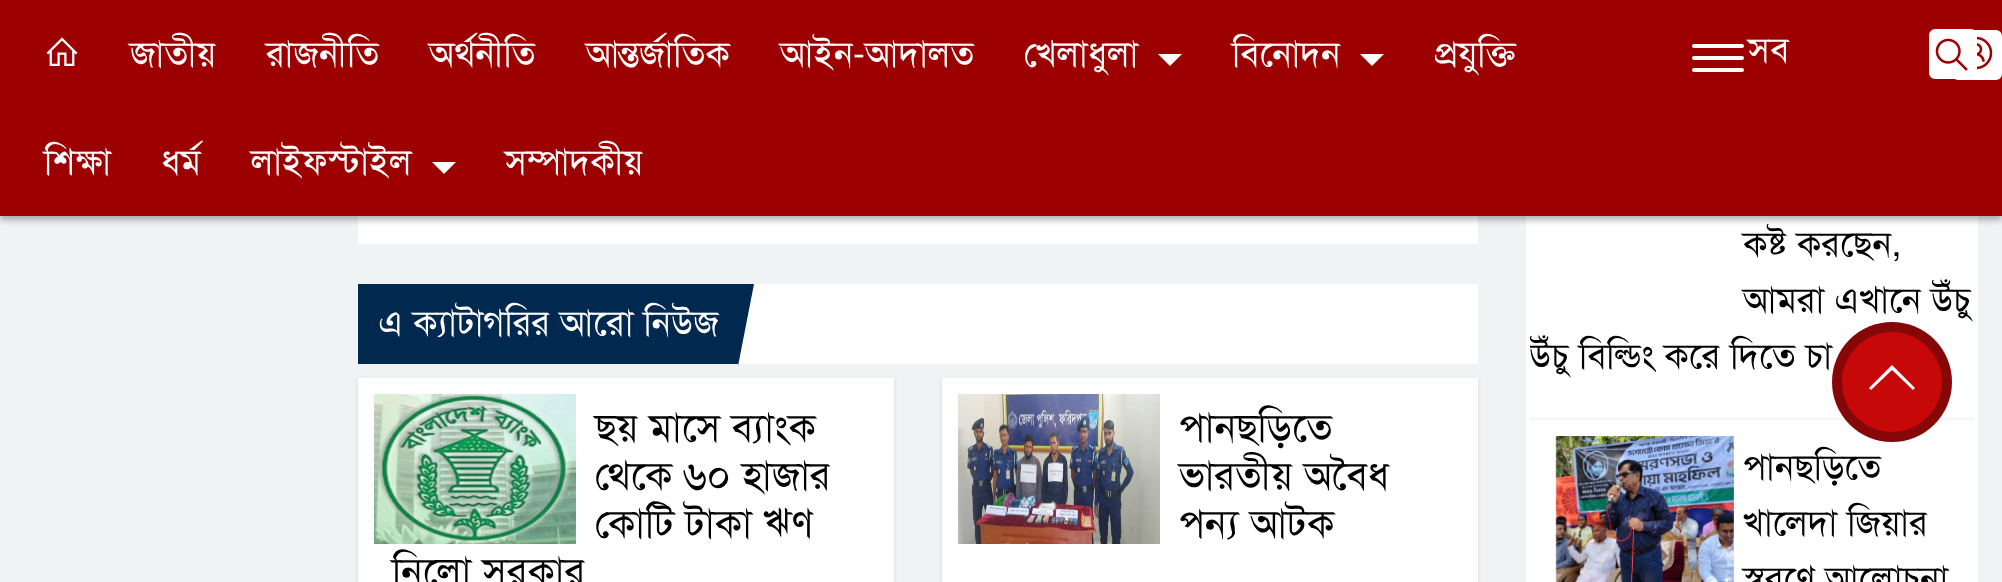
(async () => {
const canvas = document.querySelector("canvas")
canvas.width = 2002
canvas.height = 582
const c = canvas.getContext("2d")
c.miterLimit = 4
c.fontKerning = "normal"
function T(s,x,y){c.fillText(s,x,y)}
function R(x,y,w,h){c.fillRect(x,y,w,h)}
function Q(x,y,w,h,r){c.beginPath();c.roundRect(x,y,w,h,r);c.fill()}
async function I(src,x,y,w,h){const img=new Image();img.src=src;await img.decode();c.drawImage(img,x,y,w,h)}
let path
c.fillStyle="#eff3f4"
R(0,0,2002,582)
c.fillStyle="#fff"
R(358,216,1120,28)
R(1526,216,452,366)
c.fillStyle="#0000004d"
c.filter="blur(3px)"
c.beginPath()
c.rect(0,4,2002,216)
c.fill()
c.filter="none"
c.fillStyle="#9d0000"
R(0,0,2002,216)
await I("1.png",46,37,32,29)
c.font="36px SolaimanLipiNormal"
c.fillStyle="#fff"
T("জাতীয়",130,66)
T("রাজনীতি",266,66)
T("অর্থনীতি",429,66)
T("আন্তর্জাতিক",586,66)
T("আইন-আদালত",780,66)
T("খেলাধুলা",1024,66)
path = new Path2D("M1158 54h24l-12 12z")
c.fill(path)
T("বিনোদন",1232,66)
path = new Path2D("M1360 54h24l-12 12z")
c.fill(path)
T("প্রযুক্তি",1435,66)
T("শিক্ষা",44,174)
T("ধর্ম",161,174)
T("লাইফস্টাইল",251,174)
path = new Path2D("M432 162h24l-12 12z")
c.fill(path)
T("সম্পাদকীয়",505,174)
Q(1952,30,50,50,6)
path = new Path2D("M1929 73v-38c0-3 3-6 6-6h36c3 0 6 3 6 6v38c0 3-3 6-6 6h-36c-3 0-6-3-6-6z")
c.fill(path)
await I("2.png",1935,38,33,33)
Q(1692,44,52,4,2)
Q(1692,56,52,4,2)
Q(1692,68,52,4,2)
T("সব",1748,62)
await I("3.png",1977,36,16,34)
R(738,284,740,80)
c.fillStyle="#01284f"
R(358,284,380,80)
c.fillStyle="#fff"
T("এ ক্যাটাগরির আরো নিউজ",378,335)
c.fillStyle="#01284f"
path = new Path2D("M738 284h16l-16 82z")
c.fill(path)
c.fillStyle="#0000001a"
c.filter="blur(2px)"
c.beginPath()
c.rect(358,380,536,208)
c.fill()
c.filter="none"
c.fillStyle="#fff"
R(358,378,536,204)
await I("4.png",374,394,202,150)
c.font="40px SolaimanLipiNormal"
c.fillStyle="#000"
T("ছয় মাসে ব্যাংক",595,441)
T("থেকে ৬০ হাজার",595,489)
T("কোটি টাকা ঋণ",595,537)
T("নিলো সরকার",392,585)
c.fillStyle="#0000001a"
c.filter="blur(2px)"
c.beginPath()
c.rect(942,380,536,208)
c.fill()
c.filter="none"
c.fillStyle="#fff"
R(942,378,536,204)
await I("5.png",958,394,202,150)
c.fillStyle="#000"
T("পানছড়িতে",1179,441)
T("ভারতীয় অবৈধ",1179,489)
T("পন্য আটক",1179,537)
c.fillStyle="#f4f4f4"
R(1530,418,444,2)
c.font="36px SolaimanLipiNormal"
c.fillStyle="#000"
T("কষ্ট করছেন,",1743,256)
T("আমরা এখানে উঁচু",1743,312)
c.save()
c.beginPath()
c.rect(1530,158,444,260)
c.clip()
T("উঁচু বিল্ডিং করে দিতে চা",1529,368)
c.restore()
await I("6.png",1555,436,179,146)
T("পানছড়িতে",1743,479)
T("খালেদা জিয়ার",1743,535)
T("স্বরণে আলোচনা",1743,591)
c.fillStyle="#860707"
c.beginPath()
c.arc(1892,382,60,0,7)
c.fill()
c.fillStyle="#c60808"
c.beginPath()
c.arc(1892,382,50,0,7)
c.fill()
c.fillStyle="#fff"
path = new Path2D("M1892 365l-23 23l2 2l21-20l21 20l2-2z")
c.fill(path)
})()
